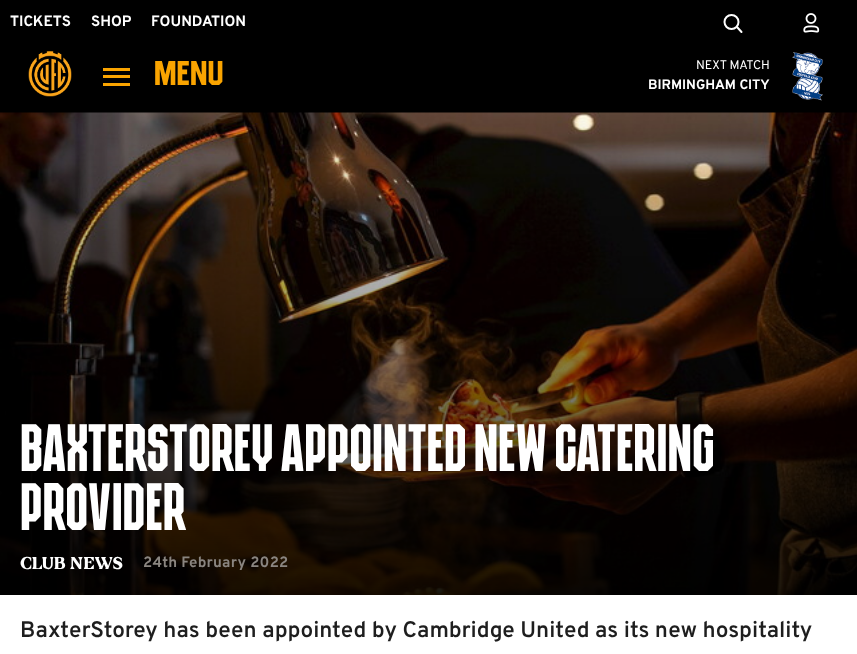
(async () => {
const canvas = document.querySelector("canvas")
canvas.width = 857
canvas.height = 654
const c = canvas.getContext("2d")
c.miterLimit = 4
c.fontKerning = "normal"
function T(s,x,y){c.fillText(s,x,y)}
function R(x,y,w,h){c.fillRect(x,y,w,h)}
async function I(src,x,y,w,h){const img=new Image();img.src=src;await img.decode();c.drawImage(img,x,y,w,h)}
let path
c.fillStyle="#000"
R(0,0,857,654)
c.font="bold 15px Overpass"
c.fillStyle="#fff"
T("TICKETS",10,26)
T("SHOP",91,26)
T("FOUNDATION",151,26)
c.beginPath()
c.arc(731.5,22,7,0,7)
c.strokeStyle="#fff"
c.lineWidth=2
c.stroke()
path = new Path2D("M737 27l4.5 5")
c.lineCap="round"
c.stroke(path)
await I("1.png",803,13,17,20)
await I("2.png",28,51,44,46)
c.fillStyle="#faa400"
R(103,75,27,3)
R(103,68,27,3)
R(103,83,27,3)
c.font="30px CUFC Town"
T("MENU",154,85)
c.font="12.5px Overpass"
c.fillStyle="#fff"
T("NEXT MATCH",696,69)
c.font="bold 13.75px Overpass"
T("BIRMINGHAM CITY",648,89)
await I("3.png",792,52,31,49)
await I("4.png",0,112,857,483)
c.font="58.6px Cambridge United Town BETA"
T("BAXTERSTOREY APPOINTED NEW CATERING",20,471)
T("PROVIDER",20,530)
c.letterSpacing="0.25px"
c.font="15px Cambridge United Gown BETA"
T("Club News",20,569)
c.font="bold 15px Overpass"
c.fillStyle="#8a8580"
T("24th February 2022",143,567)
c.fillStyle="#fff"
R(0,595,857,59)
c.letterSpacing="0px"
c.font="600 22.5px Overpass"
c.fillStyle="#1e1e1e"
T("BaxterStorey has been appointed by Cambridge United as its new hospitality",20,637)
})()
